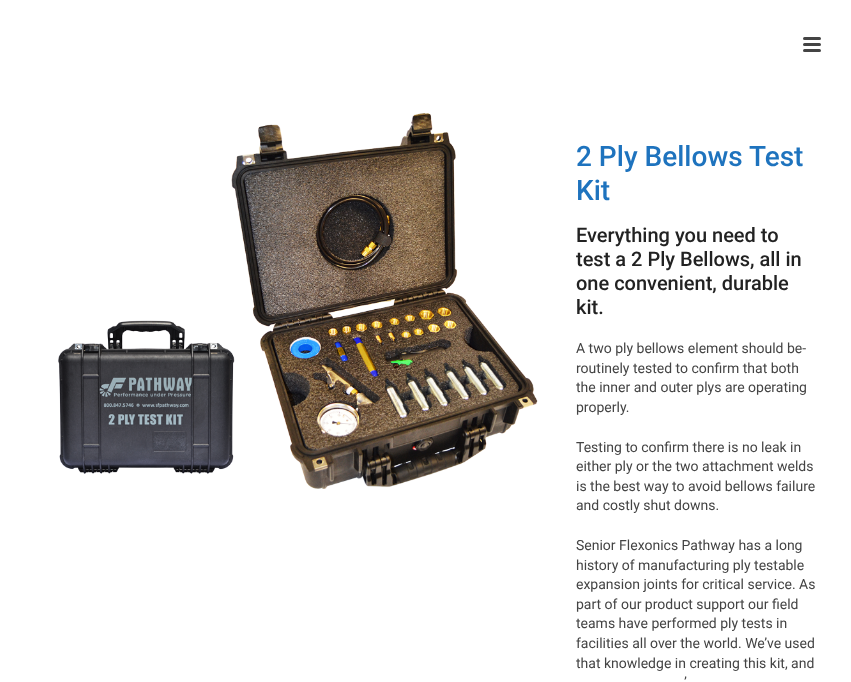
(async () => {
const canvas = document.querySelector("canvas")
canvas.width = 851
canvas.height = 682
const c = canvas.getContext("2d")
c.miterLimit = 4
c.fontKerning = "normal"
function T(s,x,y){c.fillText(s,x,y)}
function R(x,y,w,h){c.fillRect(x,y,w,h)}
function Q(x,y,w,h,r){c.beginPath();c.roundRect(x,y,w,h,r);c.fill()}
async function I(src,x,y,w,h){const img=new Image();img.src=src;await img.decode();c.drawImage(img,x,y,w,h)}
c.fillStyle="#fff"
R(0,0,851,682)
c.fillStyle="#444"
Q(803,37,18,3,1.5)
Q(803,43,18,3,1.5)
Q(803,49,18,3,1.5)
await I("1.png",58,113,480,376)
c.font="500 28px Roboto"
c.fillStyle="#1e73be"
T("2 Ply Bellows Test",576,166)
T("Kit",576,200)
c.font="500 20px Roboto"
c.fillStyle="#222"
T("Everything you need to",576,242)
T("test a 2 Ply Bellows, all in",576,266)
T("one convenient, durable",576,290)
T("kit.",576,314)
c.font="14px Roboto"
c.fillStyle="#444"
T("A two ply bellows element should be-",576,353)
T("routinely tested to confirm that both",576,373)
T("the inner and outer plys are operating",576,392)
T("properly.",576,412)
T("Testing to confirm there is no leak in",576,452)
T("either ply or the two attachment welds",576,471)
T("is the best way to avoid bellows failure",576,491)
T("and costly shut downs.",576,510)
T("Senior Flexonics Pathway has a long",576,550)
T("history of manufacturing ply testable",576,570)
T("expansion joints for critical service. As",576,589)
T("part of our product support our field",576,609)
T("teams have performed ply tests in",576,628)
T("facilities all over the world. We’ve used",576,648)
T("that knowledge in creating this kit, and",576,668)
T("’",684,687)
})()
